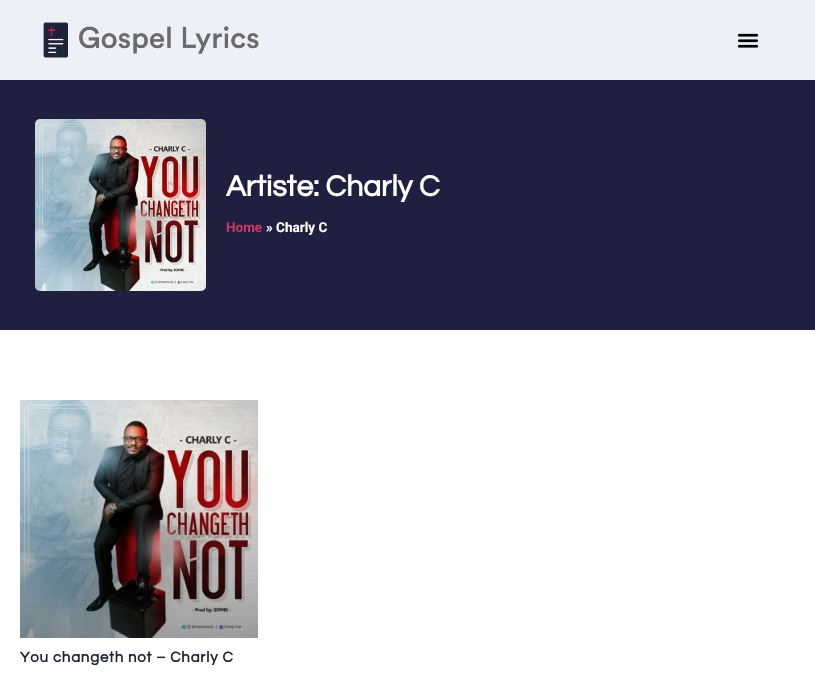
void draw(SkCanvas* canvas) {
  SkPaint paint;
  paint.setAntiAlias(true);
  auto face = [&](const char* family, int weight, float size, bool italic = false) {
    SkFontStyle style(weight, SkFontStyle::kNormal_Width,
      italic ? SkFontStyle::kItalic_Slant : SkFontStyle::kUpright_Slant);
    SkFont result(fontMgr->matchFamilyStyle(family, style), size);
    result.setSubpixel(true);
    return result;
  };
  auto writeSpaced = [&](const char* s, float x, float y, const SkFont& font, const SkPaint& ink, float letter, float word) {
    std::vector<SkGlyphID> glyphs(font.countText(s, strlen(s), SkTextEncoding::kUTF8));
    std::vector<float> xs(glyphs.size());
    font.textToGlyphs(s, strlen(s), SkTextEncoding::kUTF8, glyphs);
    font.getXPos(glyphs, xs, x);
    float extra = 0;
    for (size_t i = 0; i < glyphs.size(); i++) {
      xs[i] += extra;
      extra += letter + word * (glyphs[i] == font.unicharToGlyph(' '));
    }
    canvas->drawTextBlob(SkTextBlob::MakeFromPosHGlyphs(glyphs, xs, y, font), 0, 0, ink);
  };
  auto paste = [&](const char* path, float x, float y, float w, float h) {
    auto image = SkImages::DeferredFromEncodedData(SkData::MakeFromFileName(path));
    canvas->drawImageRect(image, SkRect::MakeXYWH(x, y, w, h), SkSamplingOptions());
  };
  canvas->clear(0xffffffff);
  paint.setColor(0xffedf0f7);
  canvas->drawRect(SkRect::MakeXYWH(0, 0, 815, 80), paint);
  paste("img/1.png", 43, 22, 216, 36);
  paste("img/2.png", 737, 33, 22, 15);
  paint.setColor(0xff211f40);
  canvas->drawRect(SkRect::MakeXYWH(0, 80, 815, 250), paint);
  paste("img/3.png", 35, 119, 171, 172);
  paste("img/4.png", 20, 400, 238, 238);
  auto f0 = face("Questrial", 700, 30);
  paint.setColor(0xffffffff);
  canvas->drawString("Artiste: Charly C", 226, 196, f0, paint);
  auto f1 = face("Roboto", 700, 13.5f);
  paint.setColor(0xffcc3366);
  canvas->drawString("Home", 226, 232, f1, paint);
  paint.setColor(0xffffffff);
  canvas->drawString("» Charly C", 266, 232, f1, paint);
  auto f2 = face("Questrial", 700, 15);
  paint.setColor(0xff21243b);
  writeSpaced("You changeth not – Charly C", 20, 662, f2, paint, 0.8f, 0);
}
